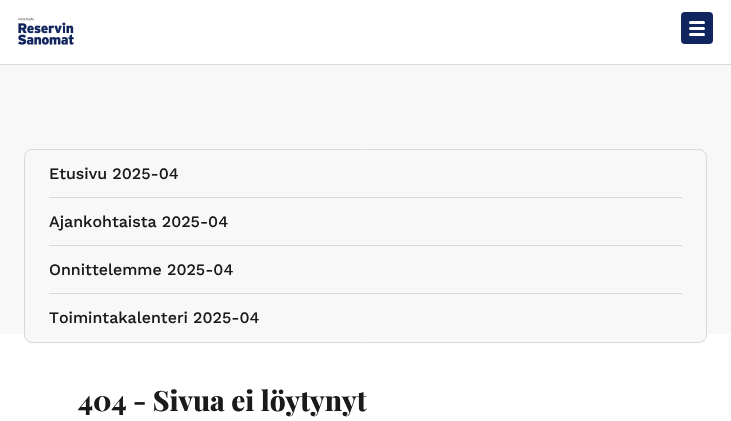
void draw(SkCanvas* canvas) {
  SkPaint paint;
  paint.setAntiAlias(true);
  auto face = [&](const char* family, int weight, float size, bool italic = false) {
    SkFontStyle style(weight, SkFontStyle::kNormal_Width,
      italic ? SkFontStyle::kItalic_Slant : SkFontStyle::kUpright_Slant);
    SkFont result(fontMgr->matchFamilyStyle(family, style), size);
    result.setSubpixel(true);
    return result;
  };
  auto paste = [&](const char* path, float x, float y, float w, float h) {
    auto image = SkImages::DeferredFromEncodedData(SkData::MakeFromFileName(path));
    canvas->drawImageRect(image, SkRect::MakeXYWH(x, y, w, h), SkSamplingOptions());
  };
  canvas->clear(0xfff8f8f8);
  paint.setColor(0xffffffff);
  canvas->drawRect(SkRect::MakeXYWH(0, 0, 731, 64), paint);
  paint.setColor(0xffd8d9de);
  canvas->drawRect(SkRect::MakeXYWH(0, 64, 731, 1), paint);
  paste("img/1.png", 18, 17, 56, 28);
  paint.setColor(0xff10255d);
  canvas->drawRoundRect(SkRect::MakeXYWH(681, 12, 32, 32), 4, 4, paint);
  paint.setColor(0xffffffff);
  canvas->drawRoundRect(SkRect::MakeXYWH(689, 33, 16, 3), 1.5f, 1.5f, paint);
  canvas->drawRoundRect(SkRect::MakeXYWH(689, 21, 16, 3), 1.5f, 1.5f, paint);
  canvas->drawRoundRect(SkRect::MakeXYWH(689, 27, 16, 3), 1.5f, 1.5f, paint);
  canvas->drawRect(SkRect::MakeXYWH(0, 334, 731, 87), paint);
  paint.setColor(0xfff8f8f8);
  canvas->drawRoundRect(SkRect::MakeXYWH(24.5f, 149.5f, 682, 193), 7.5f, 7.5f, paint);
  paint.setStroke(true);
  paint.setStrokeWidth(1);
  paint.setColor(0xffd9d9d9);
  canvas->drawRoundRect(SkRect::MakeXYWH(24.5f, 149.5f, 682, 193), 7.5f, 7.5f, paint);
  paint.setStroke(false);
  {
    const struct { float x, y, w, h; SkColor color; } items[] = {
      {49, 197, 633, 1, 0xffd9d9d9},
      {49, 245, 633, 1, 0xffd9d9d9},
      {49, 293, 633, 1, 0xffd9d9d9},
    };
    for (auto [x, y, w, h, color] : items) {
      paint.setColor(color);
      canvas->drawRect(SkRect::MakeXYWH(x, y, w, h), paint);
    }
  }
  auto f0 = face("Work Sans", 500, 16);
  paint.setColor(0xff1a1a1a);
  {
    const struct { const char* s; float x, y; } items[] = {
      {"Etusivu 2025-04", 49, 179},
      {"Ajankohtaista 2025-04", 49, 227},
      {"Onnittelemme 2025-04", 49, 275},
      {"Toimintakalenteri 2025-04", 49, 323},
    };
    for (auto [s, x, y] : items) {
      canvas->drawString(s, x, y, f0, paint);
    }
  }
  auto f1 = face("Playfair Display", 800, 28);
  canvas->drawString("404 - Sivua ei löytynyt", 78, 411, f1, paint);
}
